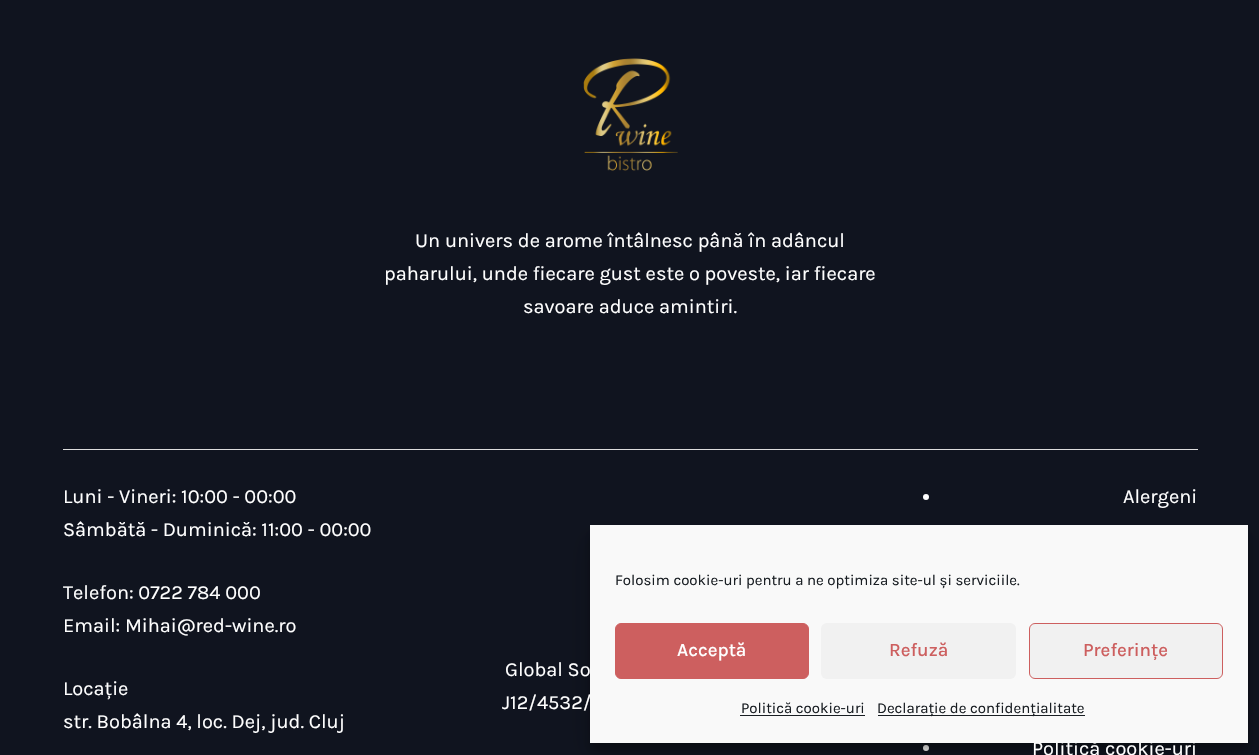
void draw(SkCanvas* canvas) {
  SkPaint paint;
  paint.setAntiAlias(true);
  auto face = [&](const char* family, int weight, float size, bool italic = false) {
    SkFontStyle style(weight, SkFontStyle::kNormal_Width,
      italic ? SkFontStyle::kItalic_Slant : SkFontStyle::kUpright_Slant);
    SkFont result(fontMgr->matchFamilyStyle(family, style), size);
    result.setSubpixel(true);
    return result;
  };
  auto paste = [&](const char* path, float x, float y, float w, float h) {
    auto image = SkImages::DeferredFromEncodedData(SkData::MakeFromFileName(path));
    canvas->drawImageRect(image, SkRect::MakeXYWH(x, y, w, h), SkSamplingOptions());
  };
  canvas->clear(0xff10141f);
  paste("img/1.png", 583, 58, 95, 113);
  paint.setColor(0xffdddddd);
  canvas->drawRect(SkRect::MakeXYWH(63, 449, 1135, 1), paint);
  paint.setColor(0xffffffff);
  canvas->drawCircle(926, 497, 3, paint);
  canvas->drawCircle(926, 748, 3, paint);
  paint.setColor(0x3b000000);
  paint.setMaskFilter(SkMaskFilter::MakeBlur(kNormal_SkBlurStyle, 4));
  canvas->drawRect(SkRect::MakeXYWH(590, 533, 658, 217), paint);
  paint.setMaskFilter(nullptr);
  paint.setColor(0x30000000);
  paint.setMaskFilter(SkMaskFilter::MakeBlur(kNormal_SkBlurStyle, 12.5f));
  canvas->drawRect(SkRect::MakeXYWH(590, 538, 658, 217), paint);
  paint.setMaskFilter(nullptr);
  auto f0 = face("Karla", 400, 20);
  paint.setColor(0xffffffff);
  {
    const struct { const char* s; float x, y; } items[] = {
      {"Un univers de arome întâlnesc până în adâncul", 415, 247},
      {"paharului, unde fiecare gust este o poveste, iar fiecare", 384, 280},
      {"savoare aduce amintiri.", 523, 313},
      {"Luni - Vineri: 10:00 - 00:00", 63, 503},
      {"Sâmbătă - Duminică: 11:00 - 00:00", 63, 536},
      {"Telefon: 0722 784 000", 63, 599},
      {"Email: Mihai@red-wine.ro", 63, 632},
      {"Locație", 63, 695},
      {"str. Bobâlna 4, loc. Dej, jud. Cluj", 63, 728},
      {"Global So", 505, 676},
      {"J12/4532/", 502, 709},
      {"Alergeni", 1123, 503},
      {"Politică cookie-uri", 1032, 755},
    };
    for (auto [s, x, y] : items) {
      canvas->drawString(s, x, y, f0, paint);
    }
  }
  paint.setColor(0xfff9f9f9);
  canvas->drawRect(SkRect::MakeXYWH(590, 525, 658, 218), paint);
  auto f1 = face("Karla", 400, 15);
  paint.setColor(0xff191e23);
  canvas->drawString("Folosim cookie-uri pentru a ne optimiza site-ul și serviciile.", 615, 585, f1, paint);
  paint.setColor(0xffcd5f5f);
  canvas->drawRoundRect(SkRect::MakeXYWH(615.5f, 623.5f, 193, 55), 5.5f, 5.5f, paint);
  paint.setStroke(true);
  paint.setStrokeWidth(1);
  canvas->drawRoundRect(SkRect::MakeXYWH(615.5f, 623.5f, 193, 55), 5.5f, 5.5f, paint);
  auto f2 = face("Karla", 500, 18.75f);
  paint.setStroke(false);
  paint.setColor(0xffffffff);
  canvas->drawString("Acceptă", 677, 656, f2, paint);
  paint.setColor(0xfff1f1f1);
  canvas->drawRoundRect(SkRect::MakeXYWH(821, 623, 195, 56), 6, 6, paint);
  paint.setColor(0xffcd5f5f);
  canvas->drawString("Refuză", 889, 656, f2, paint);
  paint.setColor(0xfff1f1f1);
  canvas->drawRoundRect(SkRect::MakeXYWH(1029.5f, 623.5f, 193, 55), 5.5f, 5.5f, paint);
  paint.setStroke(true);
  paint.setColor(0xffcd5f5f);
  canvas->drawRoundRect(SkRect::MakeXYWH(1029.5f, 623.5f, 193, 55), 5.5f, 5.5f, paint);
  paint.setStroke(false);
  canvas->drawString("Preferințe", 1083, 656, f2, paint);
  paint.setColor(0xff191e23);
  canvas->drawString("Politică cookie-uri", 741, 713, f1, paint);
  canvas->drawRect(SkRect::MakeXYWH(740, 715, 125, 1), paint);
  canvas->drawRect(SkRect::MakeXYWH(878, 715, 207, 1), paint);
  canvas->drawString("Declarație de confidențialitate", 877, 713, f1, paint);
}
